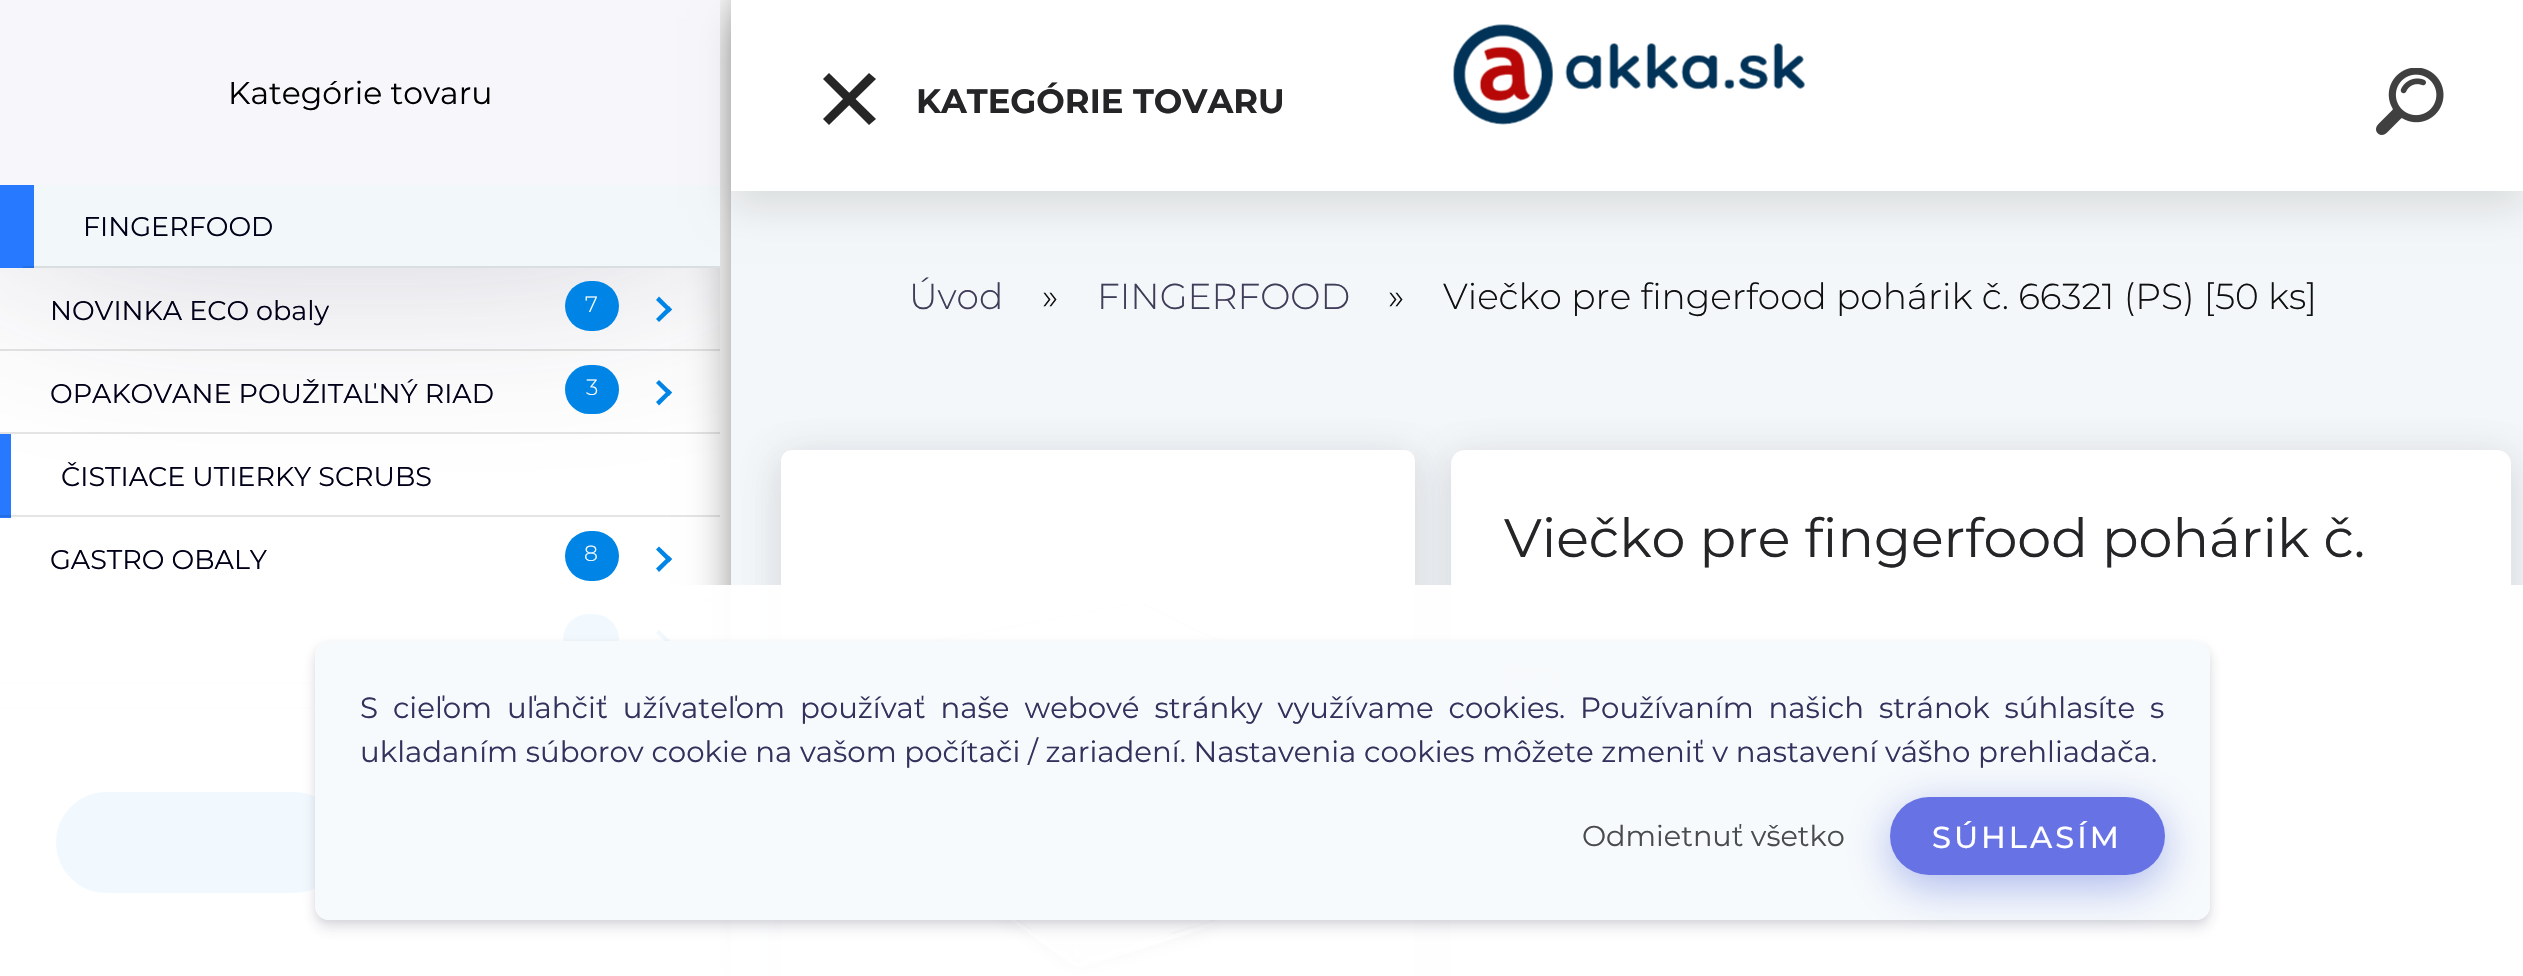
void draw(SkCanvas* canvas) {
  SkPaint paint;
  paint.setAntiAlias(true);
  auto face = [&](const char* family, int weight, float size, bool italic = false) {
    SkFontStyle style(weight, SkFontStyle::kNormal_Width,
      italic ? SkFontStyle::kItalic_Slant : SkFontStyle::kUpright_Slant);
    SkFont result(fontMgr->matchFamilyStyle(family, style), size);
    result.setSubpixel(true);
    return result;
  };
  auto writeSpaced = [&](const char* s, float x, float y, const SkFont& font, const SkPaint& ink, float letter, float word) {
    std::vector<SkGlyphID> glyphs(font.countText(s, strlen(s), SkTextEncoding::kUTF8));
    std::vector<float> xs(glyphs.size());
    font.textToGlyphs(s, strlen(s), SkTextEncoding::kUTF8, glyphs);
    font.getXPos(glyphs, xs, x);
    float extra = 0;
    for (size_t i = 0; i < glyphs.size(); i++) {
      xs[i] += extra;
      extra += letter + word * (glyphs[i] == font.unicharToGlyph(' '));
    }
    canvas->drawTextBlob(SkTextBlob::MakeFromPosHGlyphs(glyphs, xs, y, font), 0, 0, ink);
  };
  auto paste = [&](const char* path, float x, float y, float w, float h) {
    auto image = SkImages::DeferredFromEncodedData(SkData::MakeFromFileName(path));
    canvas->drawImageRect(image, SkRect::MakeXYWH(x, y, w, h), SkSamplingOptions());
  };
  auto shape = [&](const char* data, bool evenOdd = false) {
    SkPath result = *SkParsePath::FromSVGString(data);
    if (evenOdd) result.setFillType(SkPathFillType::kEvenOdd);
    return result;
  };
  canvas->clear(0xffffffff);
  canvas->save();
  canvas->clipRect(SkRect::MakeXYWH(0, 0, 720, 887));
  paint.setColor(0x663d355d);
  paint.setMaskFilter(SkMaskFilter::MakeBlur(kNormal_SkBlurStyle, 194.5f));
  canvas->drawRect(SkRect::MakeXYWH(0, 20, 720, 185), paint);
  paint.setMaskFilter(nullptr);
  canvas->restore();
  paint.setColor(0xff000000);
  paint.setMaskFilter(SkMaskFilter::MakeBlur(kNormal_SkBlurStyle, 28));
  canvas->drawRect(SkRect::MakeXYWH(754, -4, 720, 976), paint);
  paint.setMaskFilter(nullptr);
  {
    const struct { float x, y, w, h; SkColor color; } items[] = {
      {0, 0, 720, 185, 0xfff7f6fb},
      {34, 185, 686, 83, 0xfff2f8fa},
      {0, 185, 34, 83, 0xff2779ff},
      {23, 266, 697, 2, 0x1a000000},
    };
    for (auto [x, y, w, h, color] : items) {
      paint.setColor(color);
      canvas->drawRect(SkRect::MakeXYWH(x, y, w, h), paint);
    }
  }
  paint.setColor(0xff0084e6);
  canvas->drawRoundRect(SkRect::MakeXYWH(565, 281, 54, 50), 25, 25, paint);
  canvas->drawPath(shape("M672 309.5L659 322L656 319L669 306Z"), paint);
  canvas->drawPath(shape("M672 309.5L669 312.5L656 300L659 296.5Z"), paint);
  paint.setColor(0x1a000000);
  canvas->drawRect(SkRect::MakeXYWH(0, 349, 720, 2), paint);
  paint.setColor(0xff0084e6);
  canvas->drawRoundRect(SkRect::MakeXYWH(565, 365, 54, 49), 24.5f, 24.5f, paint);
  canvas->drawPath(shape("M672 392.5L659 405.5L656 402L669 389.5Z"), paint);
  canvas->drawPath(shape("M672 392.5L669 396L656 383L659 380Z"), paint);
  {
    const struct { float x, y, w, h; SkColor color; } items[] = {
      {0, 432, 720, 2, 0x1a000000},
      {0, 434, 11, 84, 0xff2779ff},
      {0, 515, 720, 2, 0x1a000000},
    };
    for (auto [x, y, w, h, color] : items) {
      paint.setColor(color);
      canvas->drawRect(SkRect::MakeXYWH(x, y, w, h), paint);
    }
  }
  paint.setColor(0xff0084e6);
  canvas->drawRoundRect(SkRect::MakeXYWH(565, 531, 54, 50), 25, 25, paint);
  canvas->drawPath(shape("M672 559L659 572L656 568.5L669 556Z"), paint);
  canvas->drawPath(shape("M672 559L669 562.5L656 549.5L659 546.5Z"), paint);
  paint.setColor(0x1a000000);
  canvas->drawRect(SkRect::MakeXYWH(0, 599, 720, 2), paint);
  paint.setColor(0xff0084e6);
  canvas->drawRoundRect(SkRect::MakeXYWH(563, 614, 56, 50), 25, 25, paint);
  canvas->drawPath(shape("M672 642.5L659 655L656 652L669 639Z"), paint);
  canvas->drawPath(shape("M672 642.5L669 645.5L656 633L659 629.5Z"), paint);
  paint.setColor(0x1a000000);
  canvas->drawRect(SkRect::MakeXYWH(0, 682, 720, 2), paint);
  paint.setColor(0xff0084e6);
  canvas->drawRoundRect(SkRect::MakeXYWH(558, 698, 61, 49), 24.5f, 24.5f, paint);
  paint.setColor(0xffffffff);
  canvas->drawRect(SkRect::MakeXYWH(558, 709, 162, 267), paint);
  paint.setColor(0xffd9d9d9);
  canvas->drawRect(SkRect::MakeXYWH(0, 707, 720, 2), paint);
  paint.setColor(0xff0084e6);
  canvas->drawRoundRect(SkRect::MakeXYWH(57, 793, 286, 99), 49.5f, 49.5f, paint);
  paint.setStroke(true);
  paint.setStrokeWidth(2);
  canvas->drawRoundRect(SkRect::MakeXYWH(57, 793, 286, 99), 49.5f, 49.5f, paint);
  paint.setStrokeWidth(5);
  canvas->drawRoundRect(SkRect::MakeXYWH(380.5f, 794.5f, 283, 96), 48, 48, paint);
  paint.setStroke(false);
  paint.setColor(0xfff4f7f9);
  canvas->drawRect(SkRect::MakeXYWH(731, 191, 1792, 785), paint);
  paint.setColor(0x1a000000);
  paint.setMaskFilter(SkMaskFilter::MakeBlur(kNormal_SkBlurStyle, 18));
  canvas->drawRect(SkRect::MakeXYWH(731, 18, 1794, 191), paint);
  paint.setMaskFilter(nullptr);
  paint.setColor(0xffffffff);
  canvas->drawRect(SkRect::MakeXYWH(731, 0, 1792, 191), paint);
  paint.setColor(0xff262626);
  canvas->drawPath(shape("M876 79L829 125L823 119L869 73Z"), paint);
  canvas->drawPath(shape("M869 125L823 79L829 73L876 119Z"), paint);
  paste("img/1.png", 1453, 24, 352, 101);
  paste("img/2.png", 2376, 68, 68, 67);
  paint.setColor(0x12000000);
  paint.setMaskFilter(SkMaskFilter::MakeBlur(kNormal_SkBlurStyle, 17));
  canvas->drawRoundRect(SkRect::MakeXYWH(1451, 461, 1060, 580), 14, 14, paint);
  paint.setMaskFilter(nullptr);
  paint.setColor(0x1a32325d);
  paint.setMaskFilter(SkMaskFilter::MakeBlur(kNormal_SkBlurStyle, 22.5f));
  canvas->drawRoundRect(SkRect::MakeXYWH(1451, 455, 1060, 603), 14, 14, paint);
  paint.setMaskFilter(nullptr);
  paint.setColor(0xffffffff);
  canvas->drawRoundRect(SkRect::MakeXYWH(1451, 450, 1060, 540), 14, 14, paint);
  paint.setColor(0x1a32325d);
  paint.setMaskFilter(SkMaskFilter::MakeBlur(kNormal_SkBlurStyle, 22.5f));
  canvas->drawRoundRect(SkRect::MakeXYWH(781, 455, 634, 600), 11, 11, paint);
  paint.setMaskFilter(nullptr);
  paint.setColor(0x12000000);
  paint.setMaskFilter(SkMaskFilter::MakeBlur(kNormal_SkBlurStyle, 17));
  canvas->drawRoundRect(SkRect::MakeXYWH(781, 461, 634, 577), 11, 11, paint);
  paint.setMaskFilter(nullptr);
  paint.setColor(0xffffffff);
  canvas->drawRoundRect(SkRect::MakeXYWH(781, 450, 634, 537), 11, 11, paint);
  paste("img/3.png", 918, 603, 379, 373);
  paste("img/4.png", 1505, 666, 54, 47);
  paint.setColor(0xf2ffffff);
  canvas->drawRect(SkRect::MakeXYWH(0, 585, 2523, 391), paint);
  canvas->save();
  canvas->clipPath(shape("M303 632H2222V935H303ZM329 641H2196C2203.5 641 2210 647.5 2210 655V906C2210 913.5 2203.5 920 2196 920H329C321.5 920 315 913.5 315 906V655C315 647.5 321.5 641 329 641Z", true), true);
  paint.setColor(0x14000000);
  paint.setMaskFilter(SkMaskFilter::MakeBlur(kNormal_SkBlurStyle, 3.5f));
  canvas->drawRoundRect(SkRect::MakeXYWH(315, 644, 1895, 279), 14, 14, paint);
  paint.setMaskFilter(nullptr);
  canvas->restore();
  canvas->save();
  canvas->clipPath(shape("M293 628H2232V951H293ZM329 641H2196C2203.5 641 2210 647.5 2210 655V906C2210 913.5 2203.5 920 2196 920H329C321.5 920 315 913.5 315 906V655C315 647.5 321.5 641 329 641Z", true), true);
  paint.setColor(0x1c32325d);
  paint.setMaskFilter(SkMaskFilter::MakeBlur(kNormal_SkBlurStyle, 7));
  canvas->drawRoundRect(SkRect::MakeXYWH(315, 650, 1895, 279), 14, 14, paint);
  paint.setMaskFilter(nullptr);
  canvas->restore();
  paint.setColor(0xe6f6f9fc);
  canvas->drawRoundRect(SkRect::MakeXYWH(315, 641, 1895, 279), 14, 14, paint);
  paint.setColor(0x663a54d6);
  paint.setMaskFilter(SkMaskFilter::MakeBlur(kNormal_SkBlurStyle, 22.5f));
  canvas->drawRoundRect(SkRect::MakeXYWH(1890, 808, 275, 79), 39.5f, 39.5f, paint);
  paint.setMaskFilter(nullptr);
  paint.setColor(0xff6772e5);
  canvas->drawRoundRect(SkRect::MakeXYWH(1890, 797, 275, 78), 39, 39, paint);
  auto f0 = face("Montserrat", 400, 31.5f);
  paint.setColor(0xff000000);
  canvas->drawString("Kategórie tovaru", 228, 104, f0, paint);
  auto f1 = face("Montserrat", 400, 27);
  paint.setColor(0xff000019);
  canvas->drawString("FINGERFOOD", 83, 236, f1, paint);
  canvas->drawString("NOVINKA ECO obaly", 50, 320, f1, paint);
  auto f2 = face("Montserrat", 300, 22);
  paint.setColor(0xffffffff);
  canvas->drawString("7", 585, 312, f2, paint);
  paint.setColor(0xff000019);
  canvas->drawString("OPAKOVANE POUŽITAĽNÝ RIAD", 50, 403, f1, paint);
  paint.setColor(0xffffffff);
  canvas->drawString("3", 586, 395, f2, paint);
  paint.setColor(0xff000019);
  canvas->drawString("ČISTIACE UTIERKY SCRUBS", 61, 486, f1, paint);
  canvas->drawString("GASTRO OBALY", 50, 569, f1, paint);
  paint.setColor(0xffffffff);
  canvas->drawString("8", 584, 561, f2, paint);
  auto f3 = face("Montserrat", 700, 33.75f);
  paint.setColor(0xff252527);
  canvas->drawString("KATEGÓRIE TOVARU", 916, 113, f3, paint);
  auto f4 = face("Montserrat", 300, 36);
  paint.setColor(0xff3f3d59);
  canvas->drawString("Úvod", 909, 309, f4, paint);
  paint.setColor(0xff101010);
  canvas->drawString("»", 1042, 309, f4, paint);
  paint.setColor(0xff3f3d59);
  canvas->drawString("FINGERFOOD", 1097, 309, f4, paint);
  paint.setColor(0xff101010);
  canvas->drawString("»", 1388, 309, f4, paint);
  canvas->drawString("Viečko pre fingerfood pohárik č. 66321 (PS) [50 ks]", 1443, 309, f4, paint);
  auto f5 = face("Montserrat", 400, 54);
  paint.setColor(0xff252527);
  canvas->drawString("Viečko pre fingerfood pohárik č.", 1504, 557, f5, paint);
  auto f6 = face("Montserrat", 400, 29.25f);
  paint.setColor(0xff32325d);
  writeSpaced("S cieľom uľahčiť užívateľom používať naše webové stránky využívame cookies. Používaním našich stránok súhlasíte s", 360, 718, f6, paint, 0, 7.25f);
  canvas->drawString("ukladaním súborov cookie na vašom počítači / zariadení. Nastavenia cookies môžete zmeniť v nastavení vášho prehliadača.", 360, 762, f6, paint);
  auto f7 = face("Montserrat", 400, 28.75f);
  paint.setColor(0xff4a4b4c);
  canvas->drawString("Odmietnuť všetko", 1582, 846, f7, paint);
  auto f8 = face("Montserrat", 500, 30.5f);
  paint.setColor(0xffffffff);
  writeSpaced("SÚHLASÍM", 1932, 848, f8, paint, 3, 0);
}
